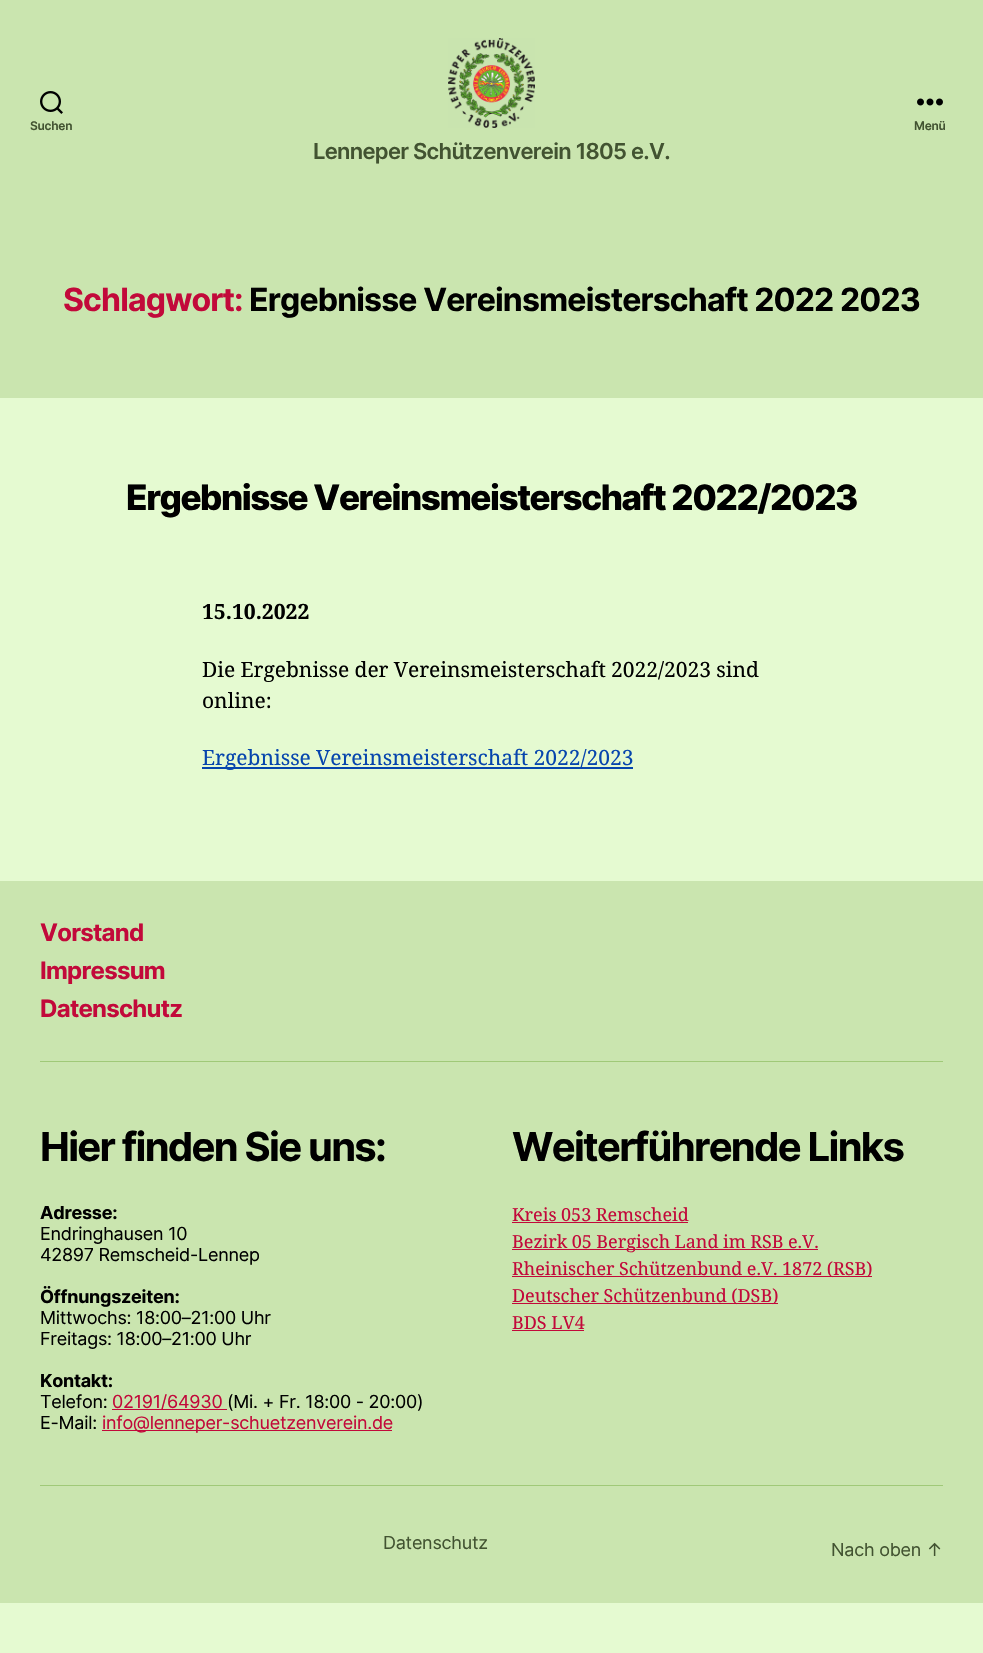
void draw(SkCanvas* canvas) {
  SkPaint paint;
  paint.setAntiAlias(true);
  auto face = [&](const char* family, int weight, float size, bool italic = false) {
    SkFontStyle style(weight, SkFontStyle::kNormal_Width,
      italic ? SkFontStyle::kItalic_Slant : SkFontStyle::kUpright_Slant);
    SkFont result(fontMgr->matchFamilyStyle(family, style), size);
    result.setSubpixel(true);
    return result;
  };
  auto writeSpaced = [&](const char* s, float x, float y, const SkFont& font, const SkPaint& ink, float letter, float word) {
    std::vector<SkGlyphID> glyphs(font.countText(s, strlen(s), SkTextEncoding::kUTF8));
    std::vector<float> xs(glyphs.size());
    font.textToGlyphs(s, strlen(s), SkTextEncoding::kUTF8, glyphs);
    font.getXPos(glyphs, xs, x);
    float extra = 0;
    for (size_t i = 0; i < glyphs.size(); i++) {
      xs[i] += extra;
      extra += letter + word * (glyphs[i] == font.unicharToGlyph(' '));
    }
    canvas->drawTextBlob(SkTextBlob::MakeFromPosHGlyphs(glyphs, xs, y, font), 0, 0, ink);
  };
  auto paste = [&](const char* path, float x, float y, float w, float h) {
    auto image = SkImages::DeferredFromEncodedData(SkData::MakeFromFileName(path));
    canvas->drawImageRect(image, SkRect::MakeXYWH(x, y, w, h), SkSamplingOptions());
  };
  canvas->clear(0xffe5fad1);
  paint.setColor(0xffcae5af);
  canvas->drawRect(SkRect::MakeXYWH(0, 0, 983, 398), paint);
  paste("img/1.png", 40, 91, 23, 23);
  paste("img/2.png", 917, 98, 26, 8);
  paste("img/3.png", 448, 38, 87, 90);
  {
    const struct { float x, y, w, h; SkColor color; } items[] = {
      {202, 767, 431, 2, 0xff0645ad},
      {0, 881, 983, 722, 0xffcae5af},
      {40, 1061, 903, 1, 0xffa0c978},
      {40, 1485, 903, 1, 0xffa0c978},
      {112, 1409, 115, 1, 0xffc2093a},
      {102, 1430, 290, 1, 0xffc2093a},
      {512, 1222, 176, 1, 0xffc2093a},
      {512, 1249, 306, 1, 0xffc2093a},
      {512, 1276, 360, 1, 0xffc2093a},
      {512, 1303, 266, 1, 0xffc2093a},
      {512, 1330, 72, 1, 0xffc2093a},
    };
    for (auto [x, y, w, h, color] : items) {
      paint.setColor(color);
      canvas->drawRect(SkRect::MakeXYWH(x, y, w, h), paint);
    }
  }
  auto f0 = face("Inter", 600, 12);
  paint.setColor(0xff425331);
  writeSpaced("Suchen", 30, 130, f0, paint, -0.25f, 0);
  writeSpaced("Menü", 914, 130, f0, paint, -0.25f, 0);
  auto f1 = face("Inter", 600, 22);
  writeSpaced("Lenneper Schützenverein 1805 e.V.", 313, 159, f1, paint, -0.7f, 0);
  auto f2 = face("Inter", 700, 32);
  paint.setColor(0xffc2093a);
  writeSpaced("Schlagwort:", 63, 311, f2, paint, -0.85f, 0);
  paint.setColor(0xff000000);
  writeSpaced("Ergebnisse Vereinsmeisterschaft 2022 2023", 249, 311, f2, paint, -0.85f, 0);
  auto f3 = face("Inter", 800, 35);
  writeSpaced("Ergebnisse Vereinsmeisterschaft 2022/2023", 126, 510, f3, paint, -1.45f, 0);
  auto f4 = face("Noto Serif", 700, 21);
  canvas->drawString("15.10.2022", 202, 619, f4, paint);
  auto f5 = face("Noto Serif", 400, 21);
  writeSpaced("Die Ergebnisse der Vereinsmeisterschaft 2022/2023 sind", 202, 677, f5, paint, 0, -0.25f);
  canvas->drawString("online:", 202, 708, f5, paint);
  paint.setColor(0xff0645ad);
  writeSpaced("Ergebnisse Vereinsmeisterschaft 2022/2023", 202, 765, f5, paint, 0, -0.25f);
  auto f6 = face("Inter", 700, 24);
  paint.setColor(0xffc2093a);
  {
    const struct { const char* s; float x, y; } items[] = {
      {"Vorstand", 40, 941},
      {"Impressum", 40, 979},
      {"Datenschutz", 40, 1017},
    };
    for (auto [s, x, y] : items) {
      writeSpaced(s, x, y, f6, paint, -0.75f, 0);
    }
  }
  auto f7 = face("Inter", 700, 40);
  paint.setColor(0xff000000);
  writeSpaced("Hier finden Sie uns:", 40, 1161, f7, paint, -1.7f, 0);
  auto f8 = face("Inter", 700, 18);
  writeSpaced("Adresse:", 40, 1219, f8, paint, -0.25f, 0);
  auto f9 = face("Inter", 400, 18);
  writeSpaced("Endringhausen 10", 40, 1240, f9, paint, -0.25f, 0);
  writeSpaced("42897 Remscheid-Lennep", 40, 1261, f9, paint, -0.25f, 0);
  writeSpaced("Öffnungszeiten:", 40, 1303, f8, paint, -0.25f, 0);
  writeSpaced("Mittwochs: 18:00–21:00 Uhr", 40, 1324, f9, paint, -0.25f, 0);
  writeSpaced("Freitags: 18:00–21:00 Uhr", 40, 1345, f9, paint, -0.25f, 0);
  writeSpaced("Kontakt:", 40, 1387, f8, paint, -0.25f, 0);
  writeSpaced("Telefon:", 40, 1408, f9, paint, -0.25f, 0);
  paint.setColor(0xffc2093a);
  writeSpaced("02191/64930", 112, 1408, f9, paint, -0.25f, 0);
  paint.setColor(0xff000000);
  writeSpaced("(Mi. + Fr. 18:00 - 20:00)", 227, 1408, f9, paint, -0.25f, 0);
  writeSpaced("E-Mail:", 40, 1429, f9, paint, -0.25f, 0);
  paint.setColor(0xffc2093a);
  writeSpaced("info@lenneper-schuetzenverein.de", 102, 1429, f9, paint, -0.25f, 0);
  paint.setColor(0xff000000);
  writeSpaced("Weiterführende Links", 512, 1161, f7, paint, -1.7f, 0);
  auto f10 = face("Noto Serif", 400, 18);
  paint.setColor(0xffc2093a);
  {
    const struct { const char* s; float x, y; } items[] = {
      {"Kreis 053 Remscheid", 512, 1221},
      {"Bezirk 05 Bergisch Land im RSB e.V.", 512, 1248},
      {"Rheinischer Schützenbund e.V. 1872 (RSB)", 512, 1275},
      {"Deutscher Schützenbund (DSB)", 512, 1302},
    };
    for (auto [s, x, y] : items) {
      writeSpaced(s, x, y, f10, paint, 0, -0.25f);
    }
  }
  canvas->drawString("BDS LV4", 512, 1329, f10, paint);
  paint.setColor(0xff425331);
  writeSpaced("Datenschutz", 383, 1549, f9, paint, -0.25f, 0);
  writeSpaced("Nach oben ↑", 831, 1556, f9, paint, -0.25f, 0);
}
